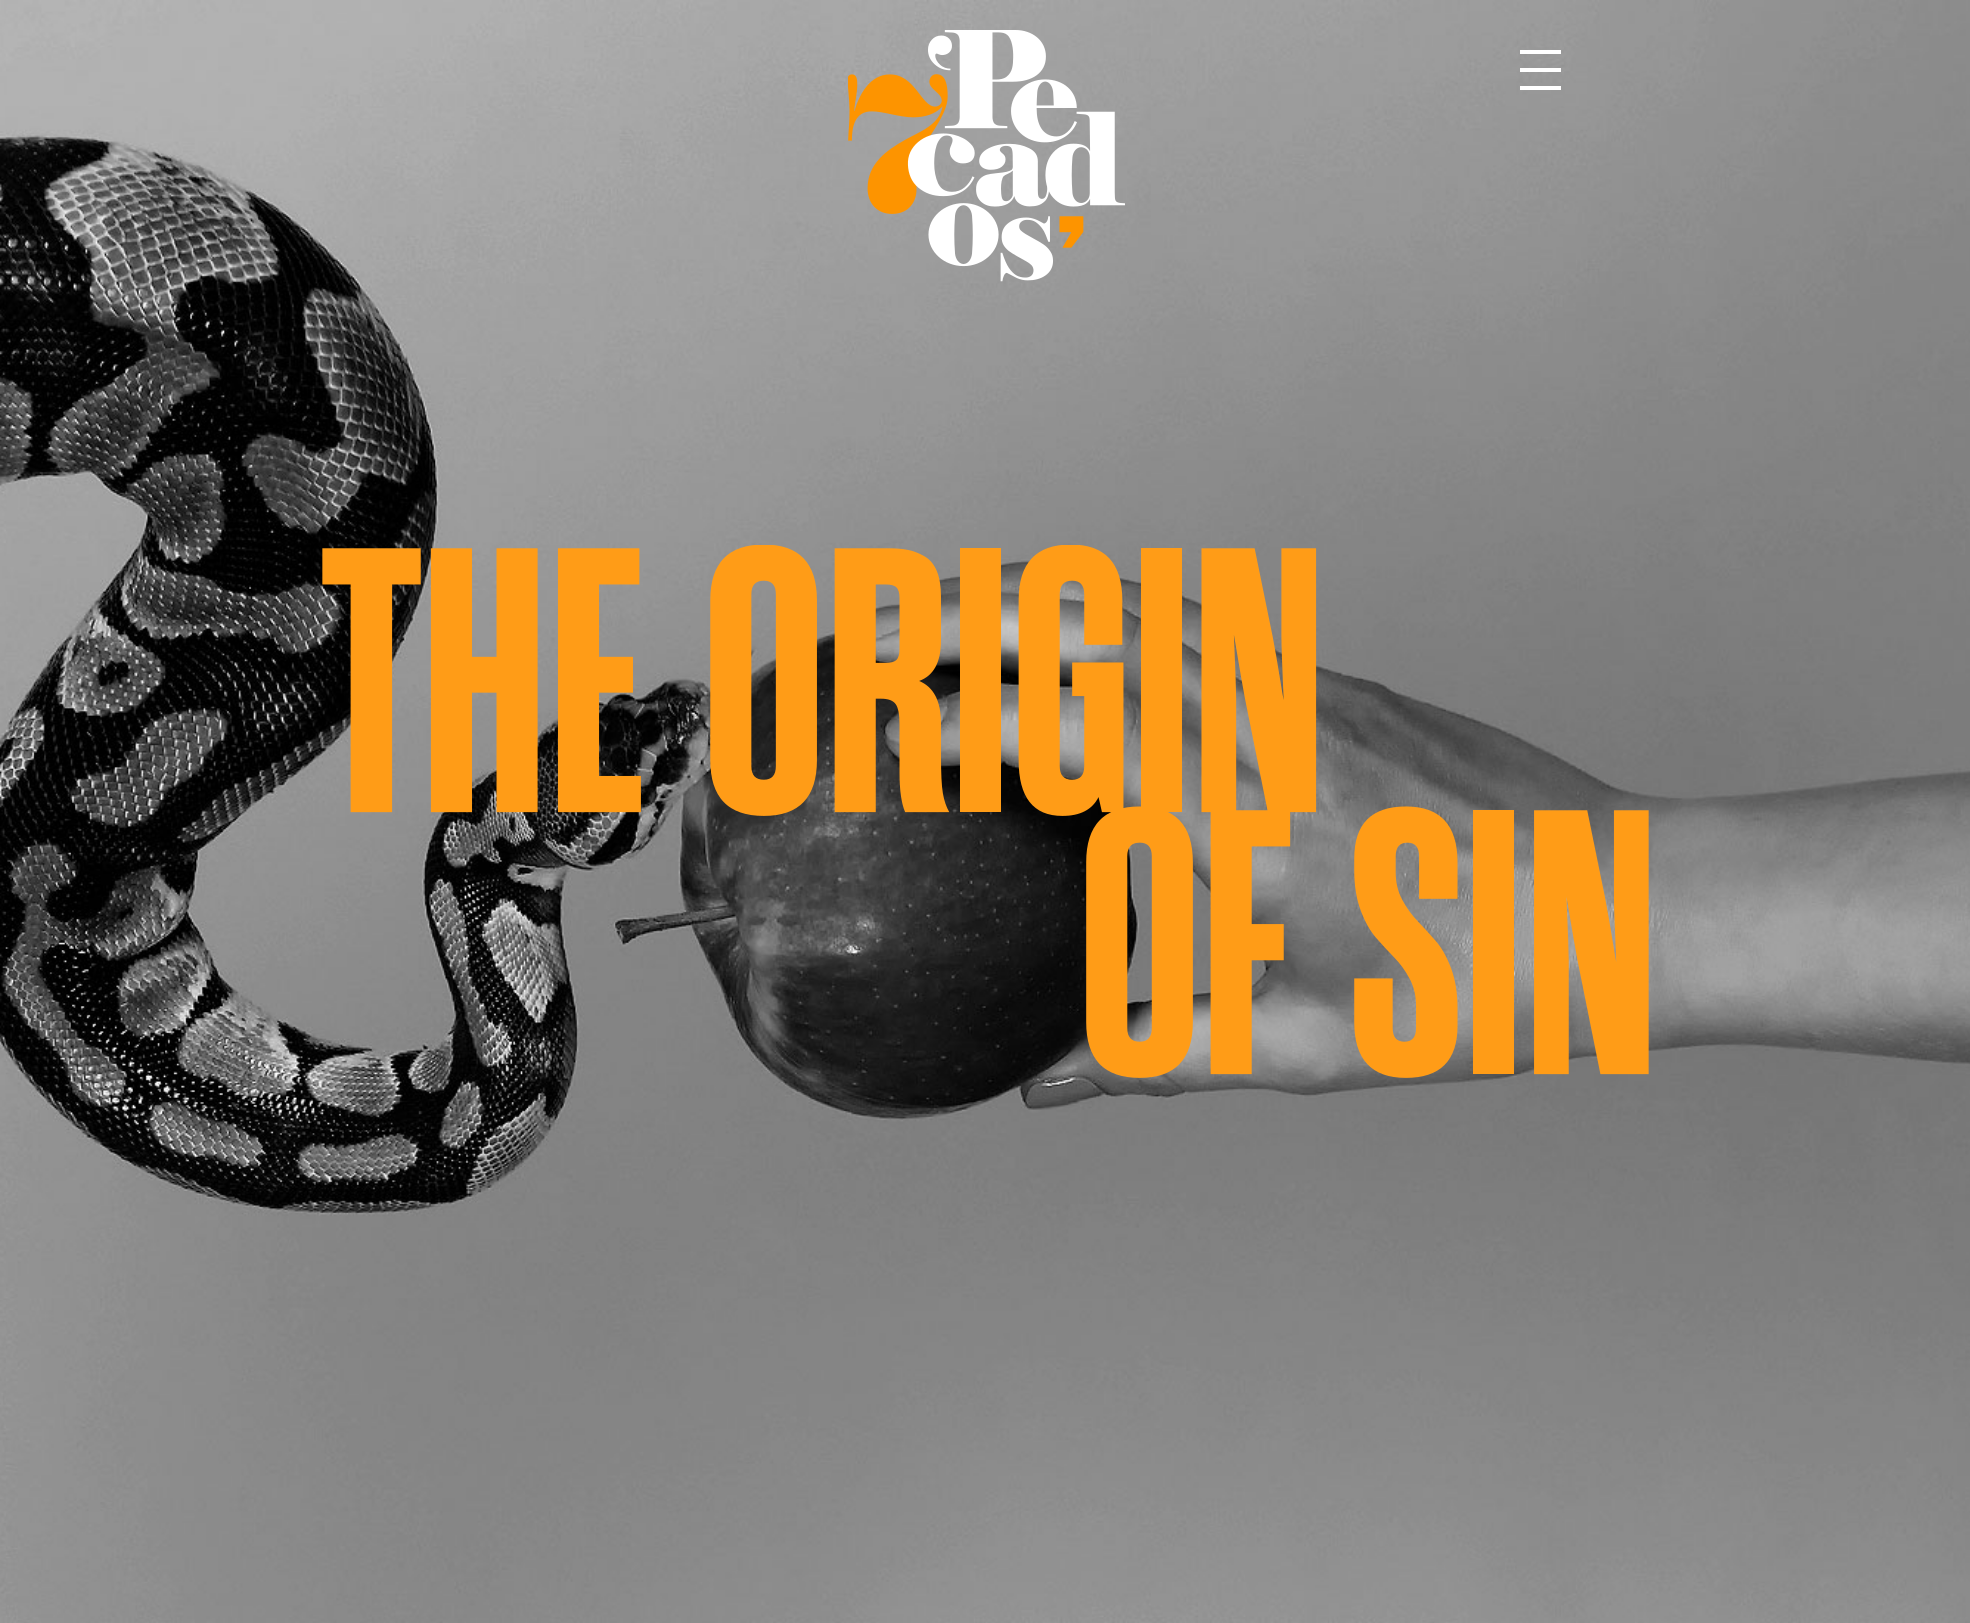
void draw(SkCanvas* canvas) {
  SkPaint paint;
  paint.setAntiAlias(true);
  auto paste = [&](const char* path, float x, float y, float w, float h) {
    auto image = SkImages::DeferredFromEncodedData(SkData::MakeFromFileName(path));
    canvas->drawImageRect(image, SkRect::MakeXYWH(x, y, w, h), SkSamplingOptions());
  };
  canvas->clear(0xffffffff);
  paste("img/1.png", 0, 0, 1970, 1623);
  paste("img/2.png", 322, 545, 1327, 533);
  paste("img/3.png", 848, 30, 277, 252);
  {
    const struct { float x, y, w, h; SkColor color; } items[] = {
      {1520, 50, 41, 4, 0xffffffff},
      {1520, 68, 41, 4, 0xffffffff},
      {1520, 86, 41, 4, 0xffffffff},
    };
    for (auto [x, y, w, h, color] : items) {
      paint.setColor(color);
      canvas->drawRect(SkRect::MakeXYWH(x, y, w, h), paint);
    }
  }
}
